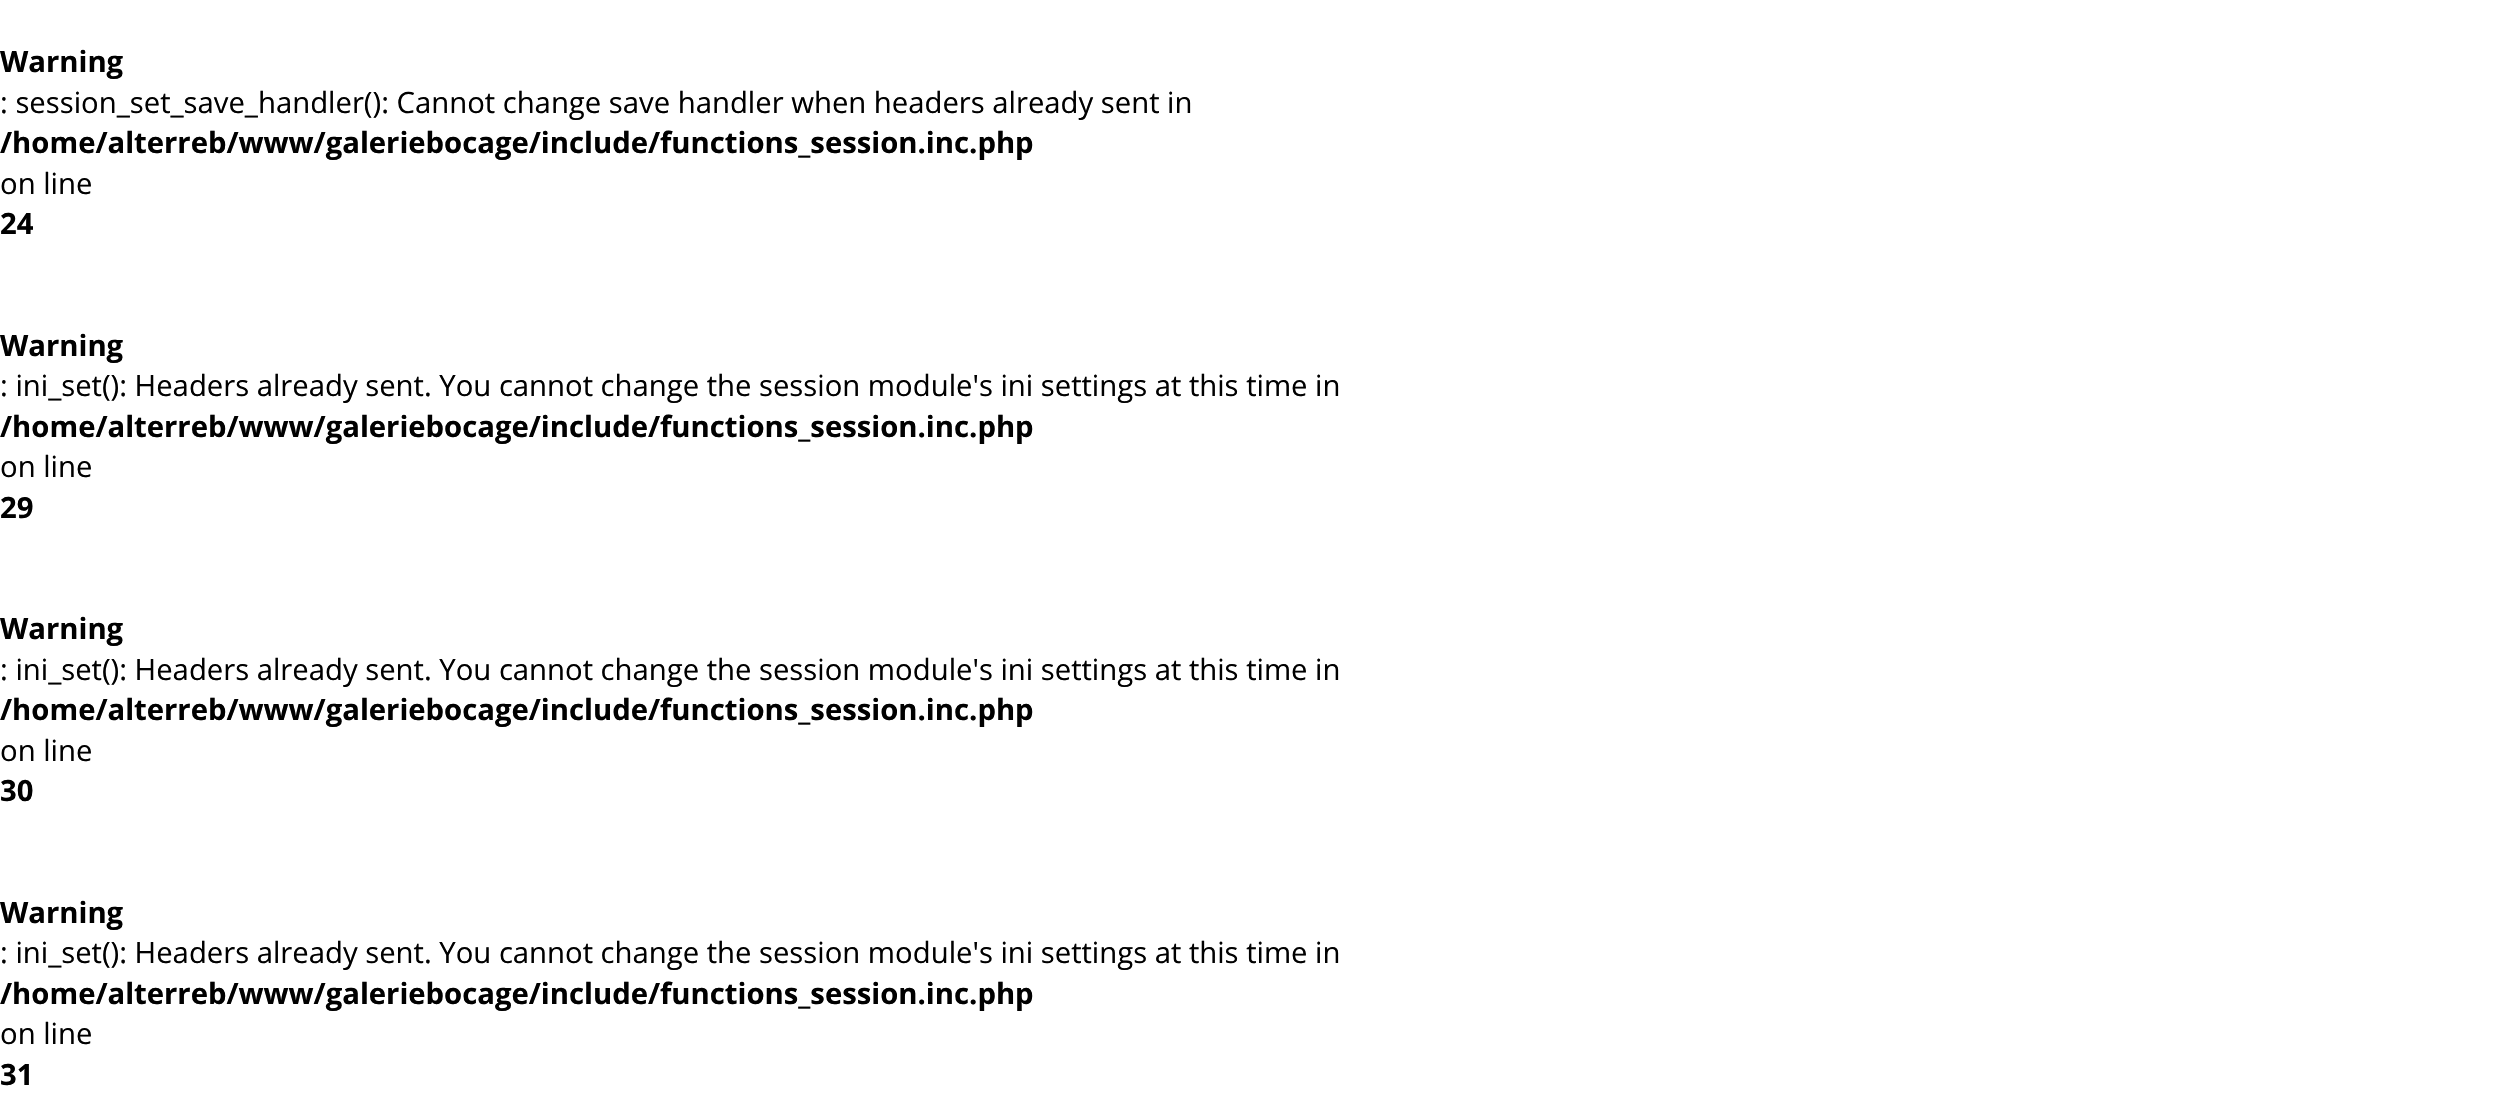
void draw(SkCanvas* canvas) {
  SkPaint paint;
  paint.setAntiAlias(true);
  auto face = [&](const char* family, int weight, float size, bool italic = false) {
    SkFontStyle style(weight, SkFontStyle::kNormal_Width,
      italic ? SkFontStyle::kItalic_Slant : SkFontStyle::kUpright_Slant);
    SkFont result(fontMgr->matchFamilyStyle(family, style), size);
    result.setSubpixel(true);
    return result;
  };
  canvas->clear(0xffffffff);
  auto f0 = face("Open Sans", 700, 29.25f);
  paint.setColor(0xff000000);
  canvas->drawString("Warning", 0, 72, f0, paint);
  auto f1 = face("Open Sans", 400, 29.25f);
  canvas->drawString(": session_set_save_handler(): Cannot change save handler when headers already sent in", 0, 113, f1, paint);
  canvas->drawString("/home/alterreb/www/galeriebocage/include/functions_session.inc.php", 0, 153, f0, paint);
  canvas->drawString("on line", 0, 194, f1, paint);
  canvas->drawString("24", 0, 234, f0, paint);
  canvas->drawString("Warning", 0, 356, f0, paint);
  canvas->drawString(": ini_set(): Headers already sent. You cannot change the session module's ini settings at this time in", 0, 396, f1, paint);
  canvas->drawString("/home/alterreb/www/galeriebocage/include/functions_session.inc.php", 0, 437, f0, paint);
  canvas->drawString("on line", 0, 477, f1, paint);
  canvas->drawString("29", 0, 518, f0, paint);
  canvas->drawString("Warning", 0, 639, f0, paint);
  canvas->drawString(": ini_set(): Headers already sent. You cannot change the session module's ini settings at this time in", 0, 680, f1, paint);
  canvas->drawString("/home/alterreb/www/galeriebocage/include/functions_session.inc.php", 0, 720, f0, paint);
  canvas->drawString("on line", 0, 761, f1, paint);
  canvas->drawString("30", 0, 801, f0, paint);
  canvas->drawString("Warning", 0, 923, f0, paint);
  canvas->drawString(": ini_set(): Headers already sent. You cannot change the session module's ini settings at this time in", 0, 963, f1, paint);
  canvas->drawString("/home/alterreb/www/galeriebocage/include/functions_session.inc.php", 0, 1004, f0, paint);
  canvas->drawString("on line", 0, 1044, f1, paint);
  canvas->drawString("31", 0, 1085, f0, paint);
}
